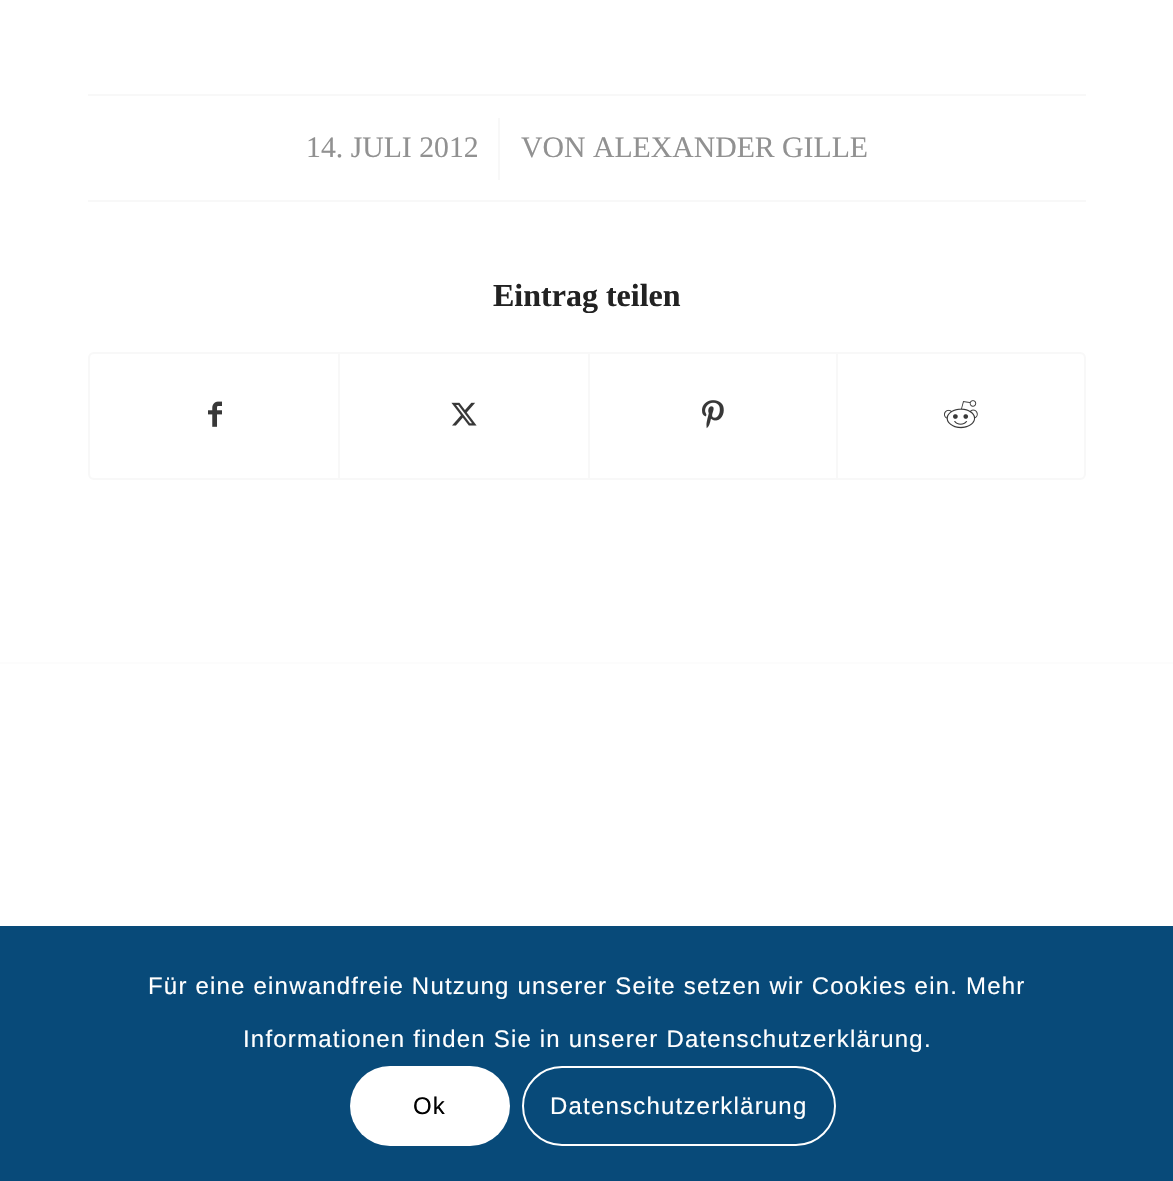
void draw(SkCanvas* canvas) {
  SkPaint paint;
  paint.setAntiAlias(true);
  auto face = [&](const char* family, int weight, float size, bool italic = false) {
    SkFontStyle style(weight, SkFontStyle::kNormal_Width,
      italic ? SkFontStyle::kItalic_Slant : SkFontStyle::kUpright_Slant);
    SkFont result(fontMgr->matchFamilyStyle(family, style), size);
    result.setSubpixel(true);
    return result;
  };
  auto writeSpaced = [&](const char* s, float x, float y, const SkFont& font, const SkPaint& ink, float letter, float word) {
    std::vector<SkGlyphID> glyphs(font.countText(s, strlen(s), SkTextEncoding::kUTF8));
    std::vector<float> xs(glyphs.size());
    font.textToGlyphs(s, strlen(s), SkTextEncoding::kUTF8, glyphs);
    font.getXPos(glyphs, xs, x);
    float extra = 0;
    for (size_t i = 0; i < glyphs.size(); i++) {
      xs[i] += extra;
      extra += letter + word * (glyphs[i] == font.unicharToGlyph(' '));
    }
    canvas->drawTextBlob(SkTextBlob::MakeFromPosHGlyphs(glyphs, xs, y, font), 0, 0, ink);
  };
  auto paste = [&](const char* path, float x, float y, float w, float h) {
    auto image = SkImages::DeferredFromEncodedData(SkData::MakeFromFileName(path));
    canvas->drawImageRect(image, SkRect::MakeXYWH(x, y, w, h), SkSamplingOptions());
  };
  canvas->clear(0xffffffff);
  {
    const struct { float x, y, w, h; SkColor color; } items[] = {
      {88, 94, 998, 2, 0xfff8f8f8},
      {88, 200, 998, 2, 0xfff8f8f8},
      {498, 118, 2, 62, 0xfff8f8f8},
    };
    for (auto [x, y, w, h, color] : items) {
      paint.setColor(color);
      canvas->drawRect(SkRect::MakeXYWH(x, y, w, h), paint);
    }
  }
  paint.setStroke(true);
  paint.setStrokeWidth(2);
  canvas->drawRoundRect(SkRect::MakeXYWH(89, 353, 996, 126), 5, 5, paint);
  paste("img/1.png", 208, 401, 14, 26);
  paint.setStroke(false);
  canvas->drawRect(SkRect::MakeXYWH(338, 354, 2, 124), paint);
  paste("img/2.png", 451, 402, 26, 24);
  canvas->drawRect(SkRect::MakeXYWH(588, 354, 2, 124), paint);
  paste("img/3.png", 702, 400, 22, 29);
  canvas->drawRect(SkRect::MakeXYWH(836, 354, 2, 124), paint);
  paste("img/4.png", 944, 400, 34, 29);
  paint.setColor(0xfffcfcfc);
  canvas->drawRect(SkRect::MakeXYWH(0, 662, 1173, 2), paint);
  paint.setColor(0xff084a79);
  canvas->drawRect(SkRect::MakeXYWH(0, 926, 1173, 255), paint);
  paint.setColor(0xffffffff);
  canvas->drawRoundRect(SkRect::MakeXYWH(350, 1066, 160, 80), 40, 40, paint);
  paint.setStroke(true);
  canvas->drawRoundRect(SkRect::MakeXYWH(523, 1067, 312, 78), 39, 39, paint);
  auto f0 = face("Liberation Serif", 400, 29.75f);
  paint.setStroke(false);
  paint.setColor(0xff919191);
  canvas->drawString("14. JULI 2012", 306, 157, f0, paint);
  canvas->drawString("VON ALEXANDER GILLE", 521, 157, f0, paint);
  auto f1 = face("Liberation Serif", 700, 32);
  paint.setColor(0xff222222);
  canvas->drawString("Eintrag teilen", 493, 306, f1, paint);
  auto f2 = face("Liberation Sans", 400, 24);
  paint.setColor(0xffffffff);
  writeSpaced("Für eine einwandfreie Nutzung unserer Seite setzen wir Cookies ein. Mehr", 148, 994, f2, paint, 1.2f, 0);
  writeSpaced("Informationen finden Sie in unserer Datenschutzerklärung.", 243, 1047, f2, paint, 1.2f, 0);
  paint.setColor(0xff000000);
  writeSpaced("Ok", 413, 1114, f2, paint, 1.2f, 0);
  paint.setColor(0xffffffff);
  writeSpaced("Datenschutzerklärung", 550, 1114, f2, paint, 1.2f, 0);
}
